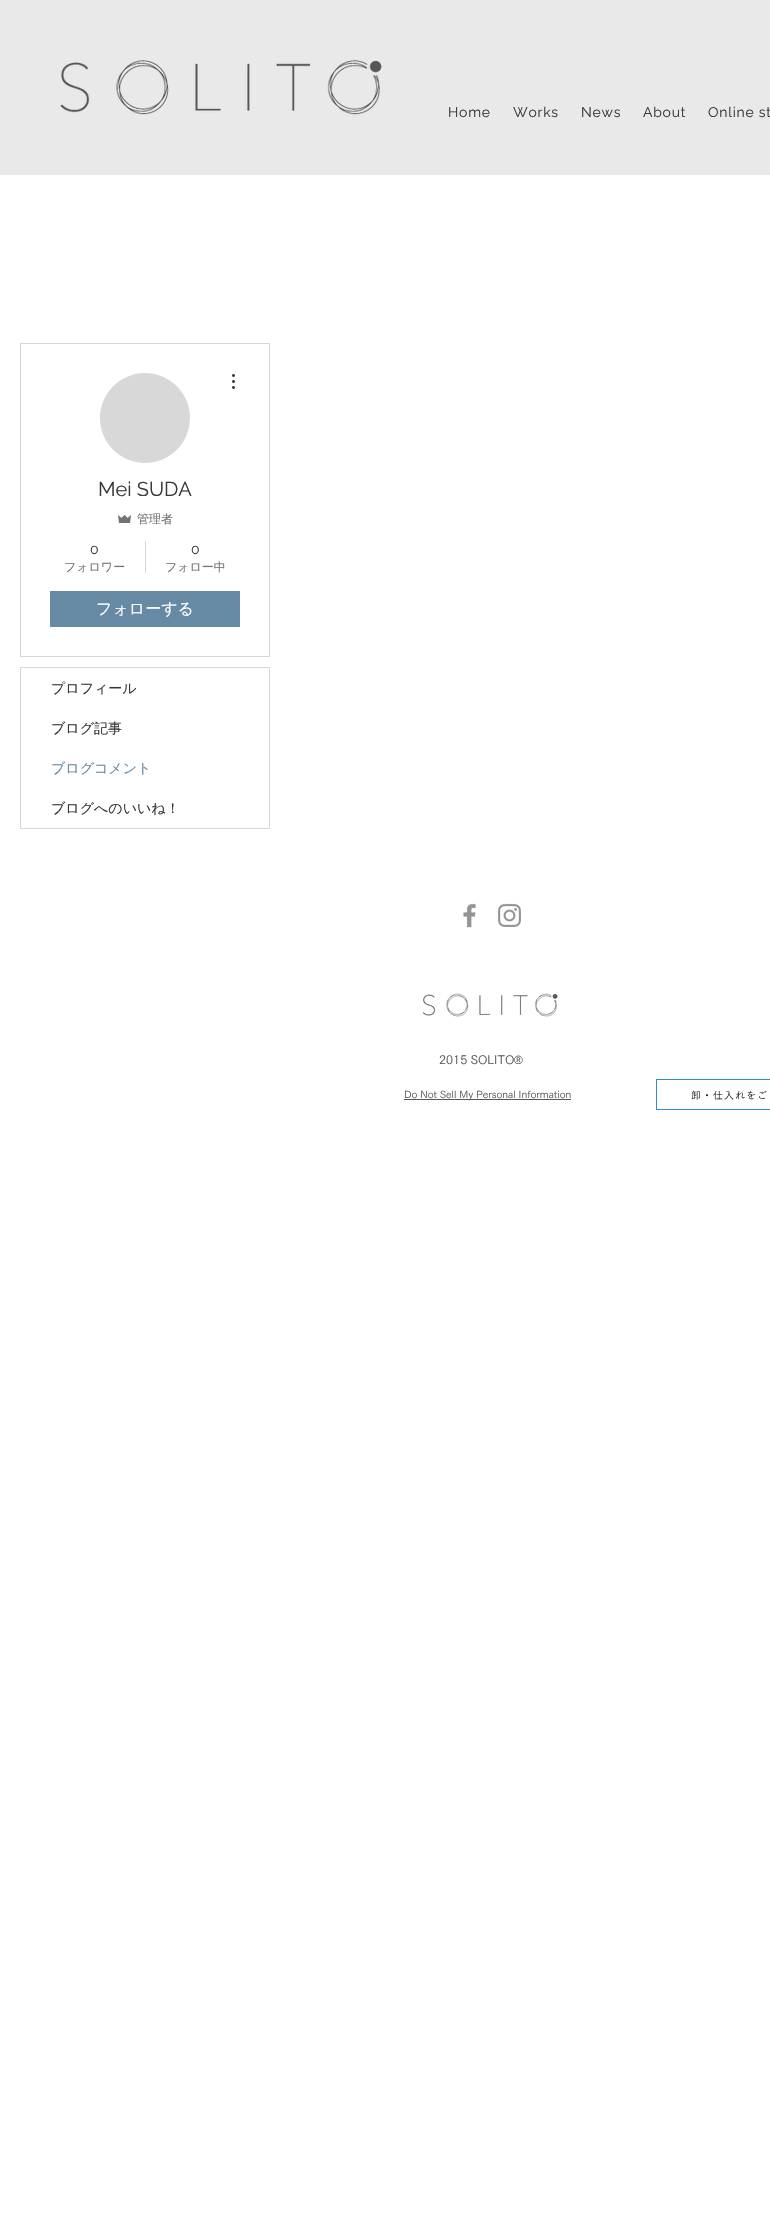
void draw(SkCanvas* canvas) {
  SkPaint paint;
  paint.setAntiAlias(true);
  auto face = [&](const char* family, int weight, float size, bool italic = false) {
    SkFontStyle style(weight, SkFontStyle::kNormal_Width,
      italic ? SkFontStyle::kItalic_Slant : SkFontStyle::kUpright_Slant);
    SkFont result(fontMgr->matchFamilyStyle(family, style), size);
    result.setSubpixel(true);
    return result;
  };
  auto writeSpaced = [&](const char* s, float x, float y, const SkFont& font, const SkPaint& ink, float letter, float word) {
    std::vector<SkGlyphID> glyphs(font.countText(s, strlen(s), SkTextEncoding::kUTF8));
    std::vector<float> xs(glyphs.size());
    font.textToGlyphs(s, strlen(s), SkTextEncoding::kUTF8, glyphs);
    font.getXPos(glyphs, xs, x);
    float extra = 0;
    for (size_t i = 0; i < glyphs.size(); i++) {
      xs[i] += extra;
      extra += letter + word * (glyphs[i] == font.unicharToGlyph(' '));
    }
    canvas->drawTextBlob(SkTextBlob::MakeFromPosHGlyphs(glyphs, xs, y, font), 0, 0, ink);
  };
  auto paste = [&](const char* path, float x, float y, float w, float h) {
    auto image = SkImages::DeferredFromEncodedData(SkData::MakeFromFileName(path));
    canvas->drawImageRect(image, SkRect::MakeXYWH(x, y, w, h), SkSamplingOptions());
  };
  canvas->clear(0xffffffff);
  paint.setColor(0xffe9e9e9);
  canvas->drawRect(SkRect::MakeXYWH(0, 0, 770, 175), paint);
  paste("img/1.png", 60, 60, 322, 55);
  paint.setStroke(true);
  paint.setStrokeWidth(1);
  paint.setColor(0xffd7d7d7);
  canvas->drawRect(SkRect::MakeXYWH(20.5f, 343.5f, 249, 313), paint);
  paint.setStroke(false);
  paint.setColor(0xffd8d8d8);
  canvas->drawCircle(145, 418, 45, paint);
  paste("img/2.png", 232, 374, 3, 15);
  paste("img/3.png", 118, 515, 13, 8);
  paint.setColor(0xffd7d7d7);
  canvas->drawRect(SkRect::MakeXYWH(145, 541, 1, 32), paint);
  paint.setColor(0xff668aa4);
  canvas->drawRect(SkRect::MakeXYWH(50, 591, 190, 36), paint);
  paint.setStroke(true);
  paint.setColor(0xffd7d7d7);
  canvas->drawRect(SkRect::MakeXYWH(20.5f, 667.5f, 249, 161), paint);
  paste("img/4.png", 463, 903, 13, 25);
  paste("img/5.png", 497, 903, 24, 24);
  paste("img/6.png", 423, 993, 135, 24);
  paint.setStroke(false);
  paint.setColor(0xff595959);
  canvas->drawRect(SkRect::MakeXYWH(404, 1099, 167, 1), paint);
  paint.setStroke(true);
  paint.setColor(0xff308cd5);
  canvas->drawRect(SkRect::MakeXYWH(656.5f, 1079.5f, 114, 30), paint);
  auto f0 = face("Raleway", 400, 14);
  paint.setStroke(false);
  paint.setColor(0xff383838);
  {
    const struct { const char* s; float x, y; } items[] = {
      {"Home", 448, 117},
      {"Works", 513, 117},
      {"News", 581, 117},
      {"About", 643, 117},
      {"Online st", 708, 117},
    };
    for (auto [s, x, y] : items) {
      writeSpaced(s, x, y, f0, paint, 0.75f, 0);
    }
  }
  auto f1 = face("Raleway", 400, 20);
  canvas->drawString("Mei SUDA", 98, 496, f1, paint);
  auto f2 = face("WenQuanYi Zen Hei", 500, 12);
  paint.setColor(0xff747474);
  canvas->drawString("管理者", 137, 523, f2, paint);
  paint.setColor(0xff383838);
  canvas->drawString("0", 90, 554, f0, paint);
  paint.setColor(0xff747474);
  canvas->drawString("フォロワー", 64, 571, f2, paint);
  paint.setColor(0xff383838);
  canvas->drawString("0", 191, 554, f0, paint);
  paint.setColor(0xff747474);
  canvas->drawString("フォロー中", 165, 571, f2, paint);
  auto f3 = face("WenQuanYi Zen Hei", 500, 16);
  paint.setColor(0xffffffff);
  canvas->drawString("フォローする", 96, 614, f3, paint);
  auto f4 = face("WenQuanYi Zen Hei", 500, 14);
  paint.setColor(0xff383838);
  canvas->drawString("プロフィール", 51, 693, f4, paint);
  canvas->drawString("ブログ記事", 51, 733, f4, paint);
  paint.setColor(0xff668aa4);
  canvas->drawString("ブログコメント", 51, 773, f4, paint);
  paint.setColor(0xff383838);
  canvas->drawString("ブログへのいいね！", 51, 813, f4, paint);
  auto f5 = face("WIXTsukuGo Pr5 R", 400, 12);
  paint.setColor(0xff595959);
  canvas->drawString("2015 SOLITO", 439, 1064, f5, paint);
  auto f6 = face("Liberation Sans", 400, 12);
  canvas->drawString("®", 514, 1064, f6, paint);
  auto f7 = face("WIXTsukuGo Pr5 R", 400, 10);
  canvas->drawString("Do Not Sell My Personal Information", 404, 1098, f7, paint);
  paint.setColor(0xff242323);
  writeSpaced("卸・仕入れをご", 691, 1099, f7, paint, 1, 0);
}
